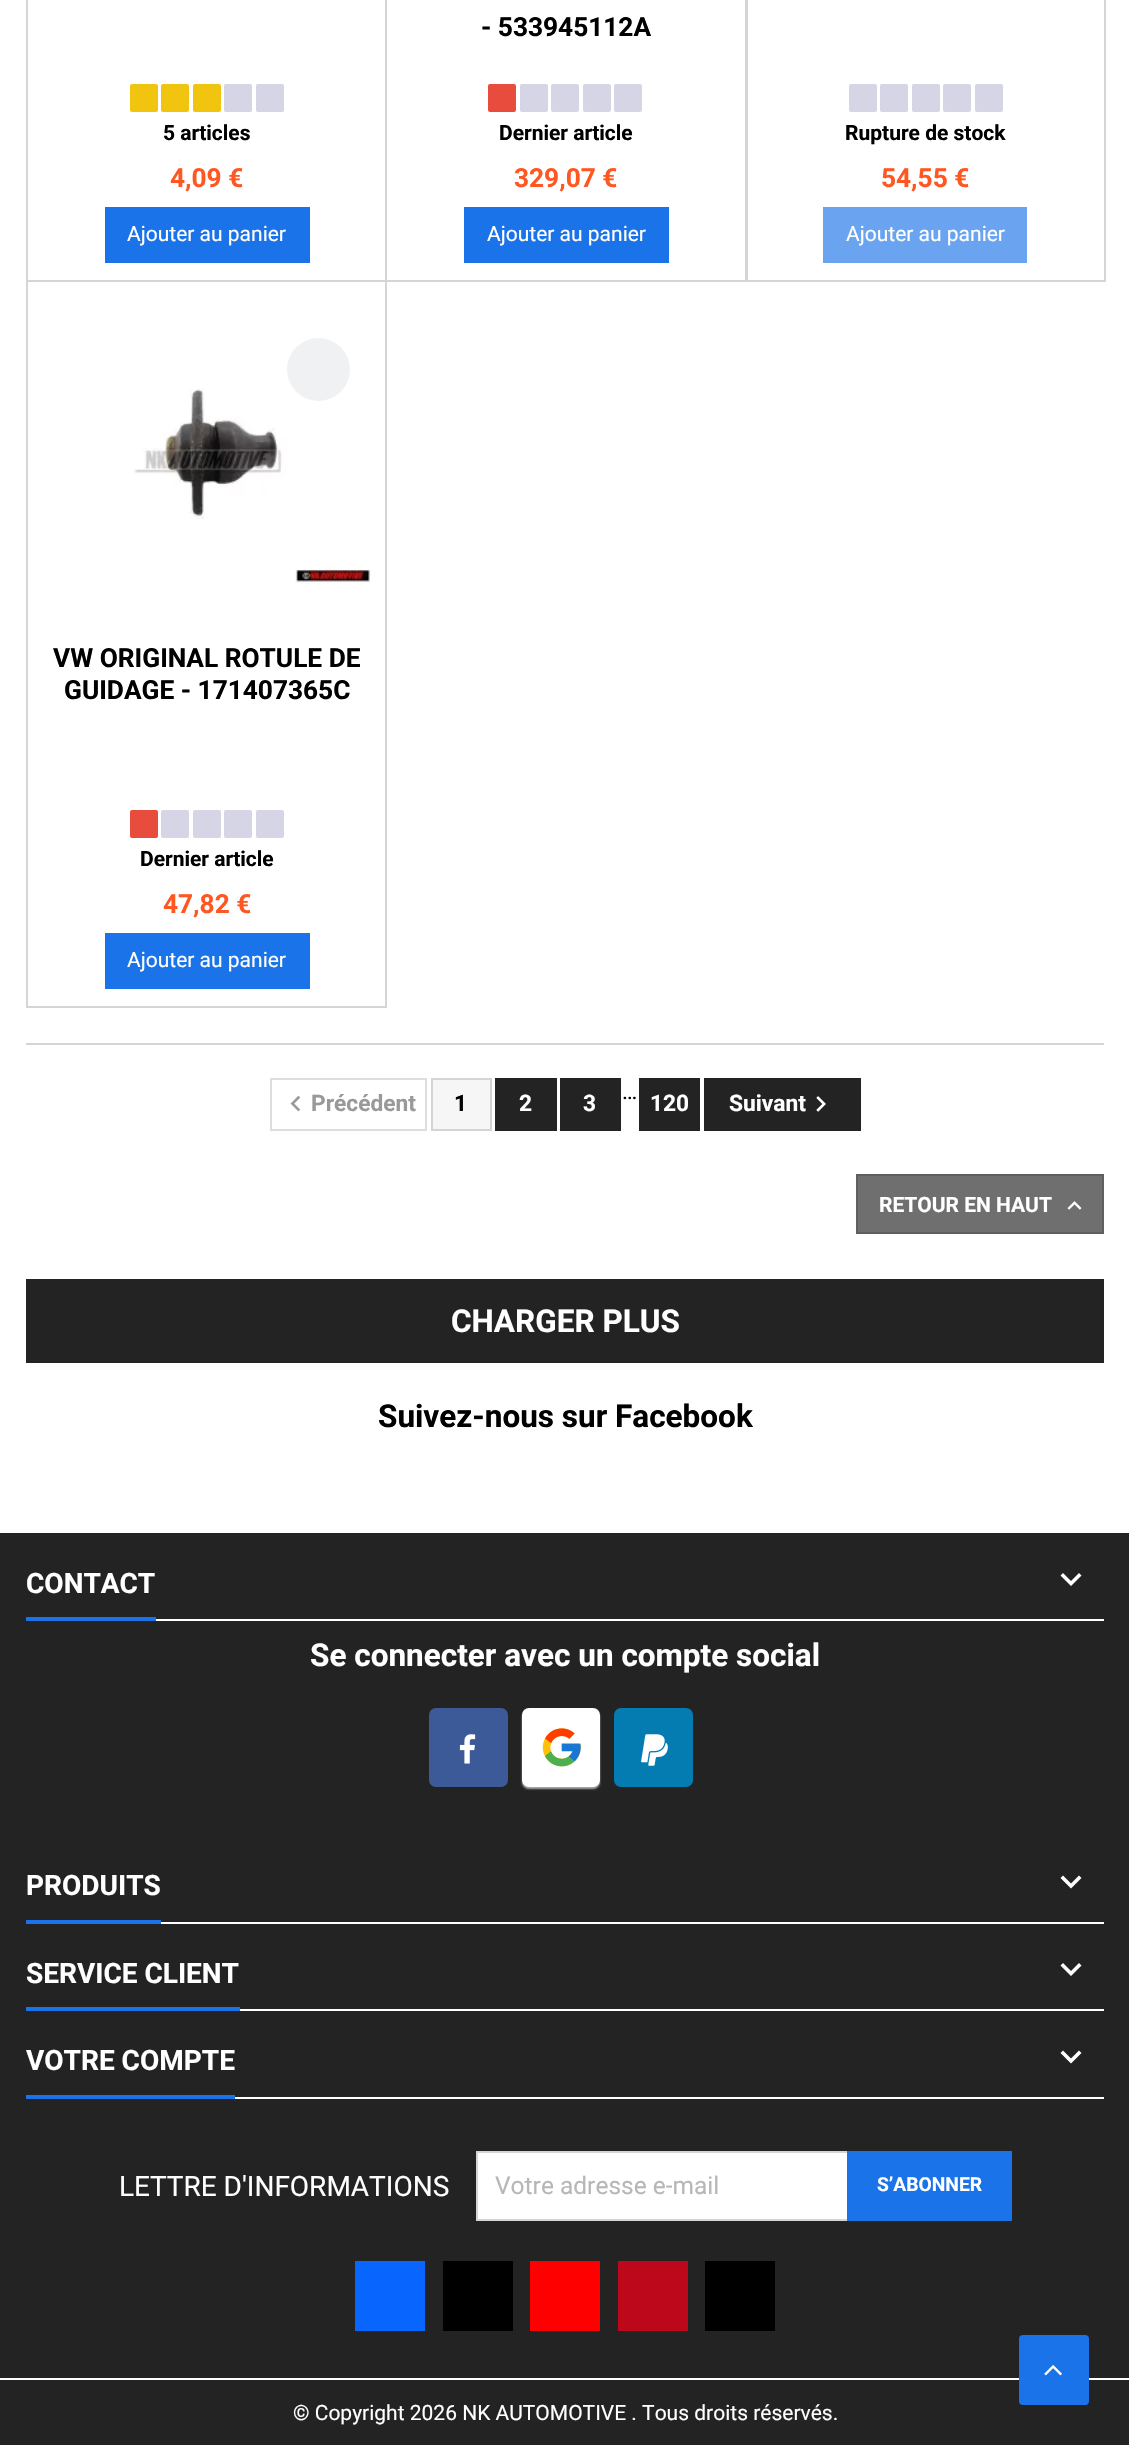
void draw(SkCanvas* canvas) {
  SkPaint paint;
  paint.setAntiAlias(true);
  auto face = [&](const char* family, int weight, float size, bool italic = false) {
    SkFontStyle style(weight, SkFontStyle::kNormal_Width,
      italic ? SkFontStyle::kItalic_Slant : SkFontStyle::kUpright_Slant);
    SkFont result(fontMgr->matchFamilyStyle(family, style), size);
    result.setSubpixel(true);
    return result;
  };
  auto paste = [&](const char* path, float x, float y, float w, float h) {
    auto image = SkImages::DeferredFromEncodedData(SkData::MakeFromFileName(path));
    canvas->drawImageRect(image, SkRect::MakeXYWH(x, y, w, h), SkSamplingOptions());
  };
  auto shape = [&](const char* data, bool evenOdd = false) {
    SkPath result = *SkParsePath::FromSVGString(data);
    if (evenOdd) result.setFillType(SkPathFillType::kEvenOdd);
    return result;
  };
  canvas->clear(0xffffffff);
  paint.setStroke(true);
  paint.setStrokeWidth(2);
  paint.setColor(0xffd6d4d4);
  canvas->drawRect(SkRect::MakeXYWH(27, -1, 359, 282), paint);
  paint.setStroke(false);
  paint.setColor(0xfff1c40f);
  canvas->drawRoundRect(SkRect::MakeXYWH(130, 84, 28, 28), 2, 2, paint);
  canvas->drawRoundRect(SkRect::MakeXYWH(161, 84, 28, 28), 2, 2, paint);
  canvas->drawRoundRect(SkRect::MakeXYWH(193, 84, 28, 28), 2, 2, paint);
  paint.setColor(0xffd5d5e5);
  canvas->drawRoundRect(SkRect::MakeXYWH(224, 84, 28, 28), 2, 2, paint);
  canvas->drawRoundRect(SkRect::MakeXYWH(256, 84, 28, 28), 2, 2, paint);
  paint.setColor(0xff1a73e8);
  canvas->drawRect(SkRect::MakeXYWH(105, 207, 205, 56), paint);
  paint.setStroke(true);
  paint.setColor(0xffd6d4d4);
  canvas->drawRect(SkRect::MakeXYWH(386, -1, 360, 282), paint);
  paint.setStroke(false);
  paint.setColor(0xffe84c3d);
  canvas->drawRoundRect(SkRect::MakeXYWH(488, 84, 28, 28), 2, 2, paint);
  paint.setColor(0xffd5d5e5);
  canvas->drawRoundRect(SkRect::MakeXYWH(520, 84, 28, 28), 2, 2, paint);
  canvas->drawRoundRect(SkRect::MakeXYWH(551, 84, 28, 28), 2, 2, paint);
  canvas->drawRoundRect(SkRect::MakeXYWH(583, 84, 28, 28), 2, 2, paint);
  canvas->drawRoundRect(SkRect::MakeXYWH(614, 84, 28, 28), 2, 2, paint);
  paint.setColor(0xff1a73e8);
  canvas->drawRect(SkRect::MakeXYWH(464, 207, 205, 56), paint);
  paint.setStroke(true);
  paint.setColor(0xffd6d4d4);
  canvas->drawRect(SkRect::MakeXYWH(747, -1, 358, 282), paint);
  paint.setStroke(false);
  paint.setColor(0xffd5d5e5);
  canvas->drawRoundRect(SkRect::MakeXYWH(849, 84, 28, 28), 2, 2, paint);
  canvas->drawRoundRect(SkRect::MakeXYWH(880, 84, 28, 28), 2, 2, paint);
  canvas->drawRoundRect(SkRect::MakeXYWH(912, 84, 28, 28), 2, 2, paint);
  canvas->drawRoundRect(SkRect::MakeXYWH(943, 84, 28, 28), 2, 2, paint);
  canvas->drawRoundRect(SkRect::MakeXYWH(975, 84, 28, 28), 2, 2, paint);
  paint.setColor(0xff6aa4f0);
  canvas->drawRect(SkRect::MakeXYWH(823, 207, 204, 56), paint);
  paint.setStroke(true);
  paint.setColor(0xffd6d4d4);
  canvas->drawRect(SkRect::MakeXYWH(27, 281, 359, 726), paint);
  paste("img/1.png", 134, 389, 237, 195);
  paint.setStroke(false);
  paint.setColor(0xffeff1f2);
  canvas->drawCircle(318.5f, 369.5f, 31.5f, paint);
  paint.setColor(0xffe84c3d);
  canvas->drawRoundRect(SkRect::MakeXYWH(130, 810, 28, 28), 2, 2, paint);
  paint.setColor(0xffd5d5e5);
  canvas->drawRoundRect(SkRect::MakeXYWH(161, 810, 28, 28), 2, 2, paint);
  canvas->drawRoundRect(SkRect::MakeXYWH(193, 810, 28, 28), 2, 2, paint);
  canvas->drawRoundRect(SkRect::MakeXYWH(224, 810, 28, 28), 2, 2, paint);
  canvas->drawRoundRect(SkRect::MakeXYWH(256, 810, 28, 28), 2, 2, paint);
  paint.setColor(0xff1a73e8);
  canvas->drawRect(SkRect::MakeXYWH(105, 933, 205, 56), paint);
  paint.setColor(0xffd6d4d4);
  canvas->drawRect(SkRect::MakeXYWH(26, 1043, 1078, 2), paint);
  paint.setStroke(true);
  paint.setColor(0xffdddddd);
  canvas->drawRect(SkRect::MakeXYWH(271, 1079, 155, 51), paint);
  paste("img/2.png", 290, 1095, 11, 17);
  paint.setStroke(false);
  paint.setColor(0xfff6f6f6);
  canvas->drawRect(SkRect::MakeXYWH(432, 1079, 59, 51), paint);
  paint.setStroke(true);
  paint.setColor(0xffd4d4d4);
  canvas->drawRect(SkRect::MakeXYWH(432, 1079, 59, 51), paint);
  paint.setStroke(false);
  {
    const struct { float x, y, w, h; SkColor color; } items[] = {
      {495, 1078, 62, 53, 0xff232323},
      {560, 1078, 61, 53, 0xff232323},
      {639, 1078, 61, 53, 0xff232323},
      {704, 1078, 157, 53, 0xff232323},
    };
    for (auto [x, y, w, h, color] : items) {
      paint.setColor(color);
      canvas->drawRect(SkRect::MakeXYWH(x, y, w, h), paint);
    }
  }
  paste("img/3.png", 816, 1096, 10, 16);
  paint.setColor(0xff6f6f6f);
  canvas->drawRect(SkRect::MakeXYWH(857, 1175, 246, 58), paint);
  paint.setStroke(true);
  paint.setColor(0xff5f5f5f);
  canvas->drawRect(SkRect::MakeXYWH(857, 1175, 246, 58), paint);
  paste("img/4.png", 1067, 1201, 15, 9);
  paint.setStroke(false);
  {
    const struct { float x, y, w, h; SkColor color; } items[] = {
      {26, 1279, 1078, 84, 0xff232323},
      {0, 1533, 1129, 845, 0xff232323},
      {156, 1619, 948, 2, 0xffffffff},
      {26, 1617, 130, 4, 0xff1a73e8},
    };
    for (auto [x, y, w, h, color] : items) {
      paint.setColor(color);
      canvas->drawRect(SkRect::MakeXYWH(x, y, w, h), paint);
    }
  }
  paint.setColor(0xffffffff);
  canvas->drawPath(shape("M1063 1573L1071 1581L1079 1573L1081.5 1575.5L1071 1586L1060.5 1575.5Z"), paint);
  paint.setColor(0xff3c5a98);
  canvas->drawRoundRect(SkRect::MakeXYWH(429, 1708, 79, 79), 7, 7, paint);
  paste("img/5.png", 459, 1734, 17, 30);
  paint.setColor(0xffaaaaaa);
  paint.setMaskFilter(SkMaskFilter::MakeBlur(kNormal_SkBlurStyle, 1));
  canvas->drawRoundRect(SkRect::MakeXYWH(522, 1710, 78, 79), 7, 7, paint);
  paint.setMaskFilter(nullptr);
  paint.setColor(0xffffffff);
  canvas->drawRoundRect(SkRect::MakeXYWH(522, 1708, 78, 79), 7, 7, paint);
  paste("img/6.png", 542, 1728, 39, 39);
  paint.setColor(0xff047cb1);
  canvas->drawRoundRect(SkRect::MakeXYWH(614, 1708, 79, 79), 7, 7, paint);
  paste("img/7.png", 641, 1734, 27, 32);
  paint.setColor(0xffffffff);
  canvas->drawRect(SkRect::MakeXYWH(161, 1922, 943, 2), paint);
  paint.setColor(0xff1a73e8);
  canvas->drawRect(SkRect::MakeXYWH(26, 1920, 135, 4), paint);
  paint.setColor(0xffffffff);
  canvas->drawPath(shape("M1063 1875.5L1071 1883.5L1079 1875.5L1081.5 1878L1071 1888.5L1060.5 1878Z"), paint);
  canvas->drawRect(SkRect::MakeXYWH(240, 2009, 864, 2), paint);
  paint.setColor(0xff1a73e8);
  canvas->drawRect(SkRect::MakeXYWH(26, 2007, 214, 4), paint);
  paint.setColor(0xffffffff);
  canvas->drawPath(shape("M1063 1963L1071 1971L1079 1963L1081.5 1965.5L1071 1976L1060.5 1965.5Z"), paint);
  canvas->drawRect(SkRect::MakeXYWH(235, 2097, 869, 2), paint);
  paint.setColor(0xff1a73e8);
  canvas->drawRect(SkRect::MakeXYWH(26, 2095, 209, 4), paint);
  paint.setColor(0xffffffff);
  canvas->drawPath(shape("M1063 2050.5L1071 2058.5L1079 2050.5L1081.5 2053L1071 2063.5L1060.5 2053Z"), paint);
  paint.setColor(0xff232323);
  canvas->drawRect(SkRect::MakeXYWH(0, 2380, 1129, 65), paint);
  paint.setColor(0x1a000000);
  paint.setMaskFilter(SkMaskFilter::MakeBlur(kNormal_SkBlurStyle, 1));
  canvas->drawRoundRect(SkRect::MakeXYWH(1019, 2336, 70, 70), 4, 4, paint);
  paint.setMaskFilter(nullptr);
  paint.setColor(0xff1a73e8);
  canvas->drawRoundRect(SkRect::MakeXYWH(1019, 2335, 70, 70), 4, 4, paint);
  paste("img/8.png", 1044, 2365, 18, 11);
  {
    const struct { float x, y, w, h; SkColor color; } items[] = {
      {478, 2153, 369, 66, 0xffffffff},
      {847, 2151, 165, 70, 0xff1a73e8},
      {355, 2261, 70, 70, 0xff0865fe},
      {443, 2261, 70, 70, 0xff000000},
      {530, 2261, 70, 70, 0xffff0000},
      {618, 2261, 70, 70, 0xffbd081c},
      {705, 2261, 70, 70, 0xff000000},
    };
    for (auto [x, y, w, h, color] : items) {
      paint.setColor(color);
      canvas->drawRect(SkRect::MakeXYWH(x, y, w, h), paint);
    }
  }
  auto f0 = face("Roboto", 700, 21);
  canvas->drawString("5 articles", 163, 140, f0, paint);
  auto f1 = face("Roboto", 700, 26.25f);
  paint.setColor(0xffff5722);
  canvas->drawString("4,09 €", 170, 187, f1, paint);
  auto f2 = face("Roboto", 400, 21);
  paint.setColor(0xffffffff);
  canvas->drawString("Ajouter au panier", 127, 241, f2, paint);
  paint.setColor(0xff000000);
  canvas->drawString("- 533945112A", 481, 36, f1, paint);
  canvas->drawString("Dernier article", 499, 140, f0, paint);
  paint.setColor(0xffff5722);
  canvas->drawString("329,07 €", 514, 187, f1, paint);
  paint.setColor(0xffffffff);
  canvas->drawString("Ajouter au panier", 487, 241, f2, paint);
  paint.setColor(0xff000000);
  canvas->drawString("Rupture de stock", 845, 140, f0, paint);
  paint.setColor(0xffff5722);
  canvas->drawString("54,55 €", 881, 187, f1, paint);
  paint.setColor(0xffffffff);
  canvas->drawString("Ajouter au panier", 846, 241, f2, paint);
  paint.setColor(0xff000000);
  canvas->drawString("VW ORIGINAL ROTULE DE", 53, 667, f1, paint);
  canvas->drawString("GUIDAGE - 171407365C", 64, 699, f1, paint);
  canvas->drawString("Dernier article", 140, 866, f0, paint);
  paint.setColor(0xffff5722);
  canvas->drawString("47,82 €", 163, 913, f1, paint);
  paint.setColor(0xffffffff);
  canvas->drawString("Ajouter au panier", 127, 967, f2, paint);
  auto f3 = face("Roboto", 700, 22.75f);
  paint.setColor(0xff999999);
  canvas->drawString("Précédent", 311, 1111, f3, paint);
  paint.setColor(0xff000000);
  canvas->drawString("1", 454, 1111, f3, paint);
  paint.setColor(0xffffffff);
  canvas->drawString("2", 519, 1111, f3, paint);
  canvas->drawString("3", 583, 1111, f3, paint);
  auto f4 = face("Roboto", 400, 22.75f);
  paint.setColor(0xff000000);
  canvas->drawString("…", 622, 1099, f4, paint);
  paint.setColor(0xffffffff);
  canvas->drawString("120", 650, 1111, f3, paint);
  canvas->drawString("Suivant", 729, 1111, f3, paint);
  canvas->drawString("RETOUR EN HAUT", 879, 1212, f0, paint);
  auto f5 = face("Roboto", 700, 31.5f);
  canvas->drawString("CHARGER PLUS", 451, 1332, f5, paint);
  paint.setColor(0xff000000);
  canvas->drawString("Suivez-nous sur Facebook", 378, 1427, f5, paint);
  auto f6 = face("Roboto", 700, 28);
  paint.setColor(0xffffffff);
  canvas->drawString("CONTACT", 26, 1593, f6, paint);
  canvas->drawString("Se connecter avec un compte social", 310, 1666, f5, paint);
  {
    const struct { const char* s; float x, y; } items[] = {
      {"PRODUITS", 26, 1895},
      {"SERVICE CLIENT", 26, 1983},
      {"VOTRE COMPTE", 26, 2070},
    };
    for (auto [s, x, y] : items) {
      canvas->drawString(s, x, y, f6, paint);
    }
  }
  auto f7 = face("Roboto", 400, 28);
  canvas->drawString("LETTRE D'INFORMATIONS", 119, 2196, f7, paint);
  auto f8 = face("Roboto", 700, 19.25f);
  canvas->drawString("S’ABONNER", 877, 2191, f8, paint);
  canvas->save();
  canvas->clipRect(SkRect::MakeXYWH(476, 2151, 371, 70));
  paint.setStroke(true);
  paint.setColor(0xffd6d4d4);
  canvas->drawRect(SkRect::MakeXYWH(477, 2152, 444, 68), paint);
  canvas->restore();
  auto f9 = face("Roboto", 400, 24.5f);
  paint.setStroke(false);
  paint.setColor(0xffb7b7b7);
  canvas->drawString("Votre adresse e-mail", 495, 2194, f9, paint);
  paint.setColor(0xffffffff);
  canvas->drawString("© Copyright 2026 NK AUTOMOTIVE . Tous droits réservés.", 293, 2420, f2, paint);
}
